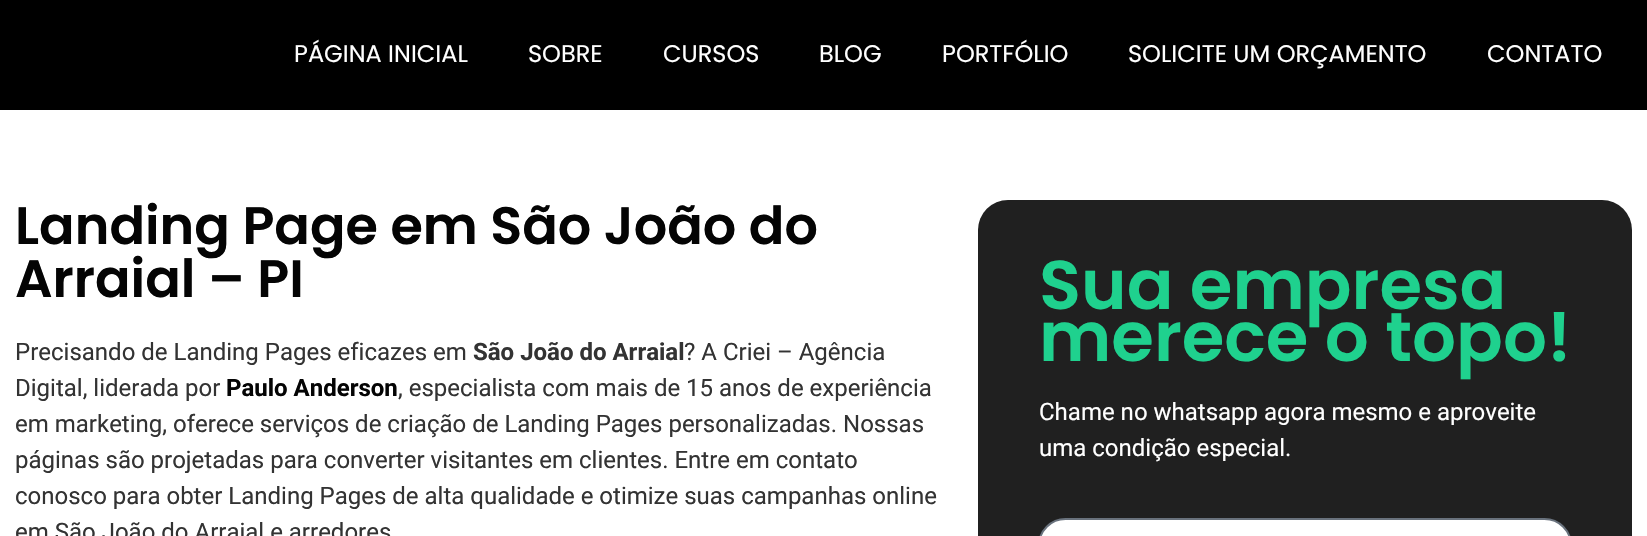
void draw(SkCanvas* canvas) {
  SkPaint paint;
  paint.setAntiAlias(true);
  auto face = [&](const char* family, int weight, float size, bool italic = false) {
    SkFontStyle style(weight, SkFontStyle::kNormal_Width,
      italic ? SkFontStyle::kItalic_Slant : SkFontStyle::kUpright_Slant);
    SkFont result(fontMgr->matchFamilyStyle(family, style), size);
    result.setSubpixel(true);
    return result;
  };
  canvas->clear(0xffffffff);
  paint.setColor(0xff000000);
  canvas->drawRect(SkRect::MakeXYWH(0, 0, 1647, 110), paint);
  paint.setColor(0xff202020);
  canvas->drawRoundRect(SkRect::MakeXYWH(978, 200, 654, 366), 30, 30, paint);
  paint.setColor(0xffffffff);
  canvas->drawRoundRect(SkRect::MakeXYWH(1039, 519, 532, 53), 34, 34, paint);
  paint.setStroke(true);
  paint.setStrokeWidth(2);
  paint.setColor(0xff69727d);
  canvas->drawRoundRect(SkRect::MakeXYWH(1039, 519, 532, 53), 34, 34, paint);
  auto f0 = face("Poppins", 400, 24);
  paint.setStroke(false);
  paint.setColor(0xffffffff);
  {
    const struct { const char* s; float x, y; } items[] = {
      {"PÁGINA INICIAL", 294, 62},
      {"SOBRE", 528, 62},
      {"CURSOS", 663, 62},
      {"BLOG", 819, 62},
      {"PORTFÓLIO", 942, 62},
      {"SOLICITE UM ORÇAMENTO", 1128, 62},
      {"CONTATO", 1487, 62},
    };
    for (auto [s, x, y] : items) {
      canvas->drawString(s, x, y, f0, paint);
    }
  }
  auto f1 = face("Poppins", 600, 52.5f);
  paint.setColor(0xff040404);
  canvas->drawString("Landing Page em São João do", 15, 244, f1, paint);
  canvas->drawString("Arraial – PI", 15, 297, f1, paint);
  auto f2 = face("Roboto", 400, 24);
  paint.setColor(0xff333333);
  canvas->drawString("Precisando de Landing Pages eficazes em", 15, 360, f2, paint);
  auto f3 = face("Roboto", 700, 24);
  canvas->drawString("São João do Arraial", 473, 360, f3, paint);
  canvas->drawString("? A Criei – Agência", 684, 360, f2, paint);
  canvas->drawString("Digital, liderada por", 15, 396, f2, paint);
  paint.setColor(0xff040404);
  canvas->drawString("Paulo Anderson", 226, 396, f3, paint);
  paint.setColor(0xff333333);
  {
    const struct { const char* s; float x, y; } items[] = {
      {", especialista com mais de 15 anos de experiência", 398, 396},
      {"em marketing, oferece serviços de criação de Landing Pages personalizadas. Nossas", 15, 432},
      {"páginas são projetadas para converter visitantes em clientes. Entre em contato", 15, 468},
      {"conosco para obter Landing Pages de alta qualidade e otimize suas campanhas online", 15, 504},
      {"em São João do Arraial e arredores", 15, 540},
    };
    for (auto [s, x, y] : items) {
      canvas->drawString(s, x, y, f2, paint);
    }
  }
  auto f4 = face("Poppins", 600, 69);
  paint.setColor(0xff1fd18e);
  canvas->drawString("Sua empresa", 1039, 309, f4, paint);
  canvas->drawString("merece o topo!", 1039, 361, f4, paint);
  paint.setColor(0xffffffff);
  canvas->drawString("Chame no whatsapp agora mesmo e aproveite", 1039, 420, f2, paint);
  canvas->drawString("uma condição especial.", 1039, 456, f2, paint);
}
